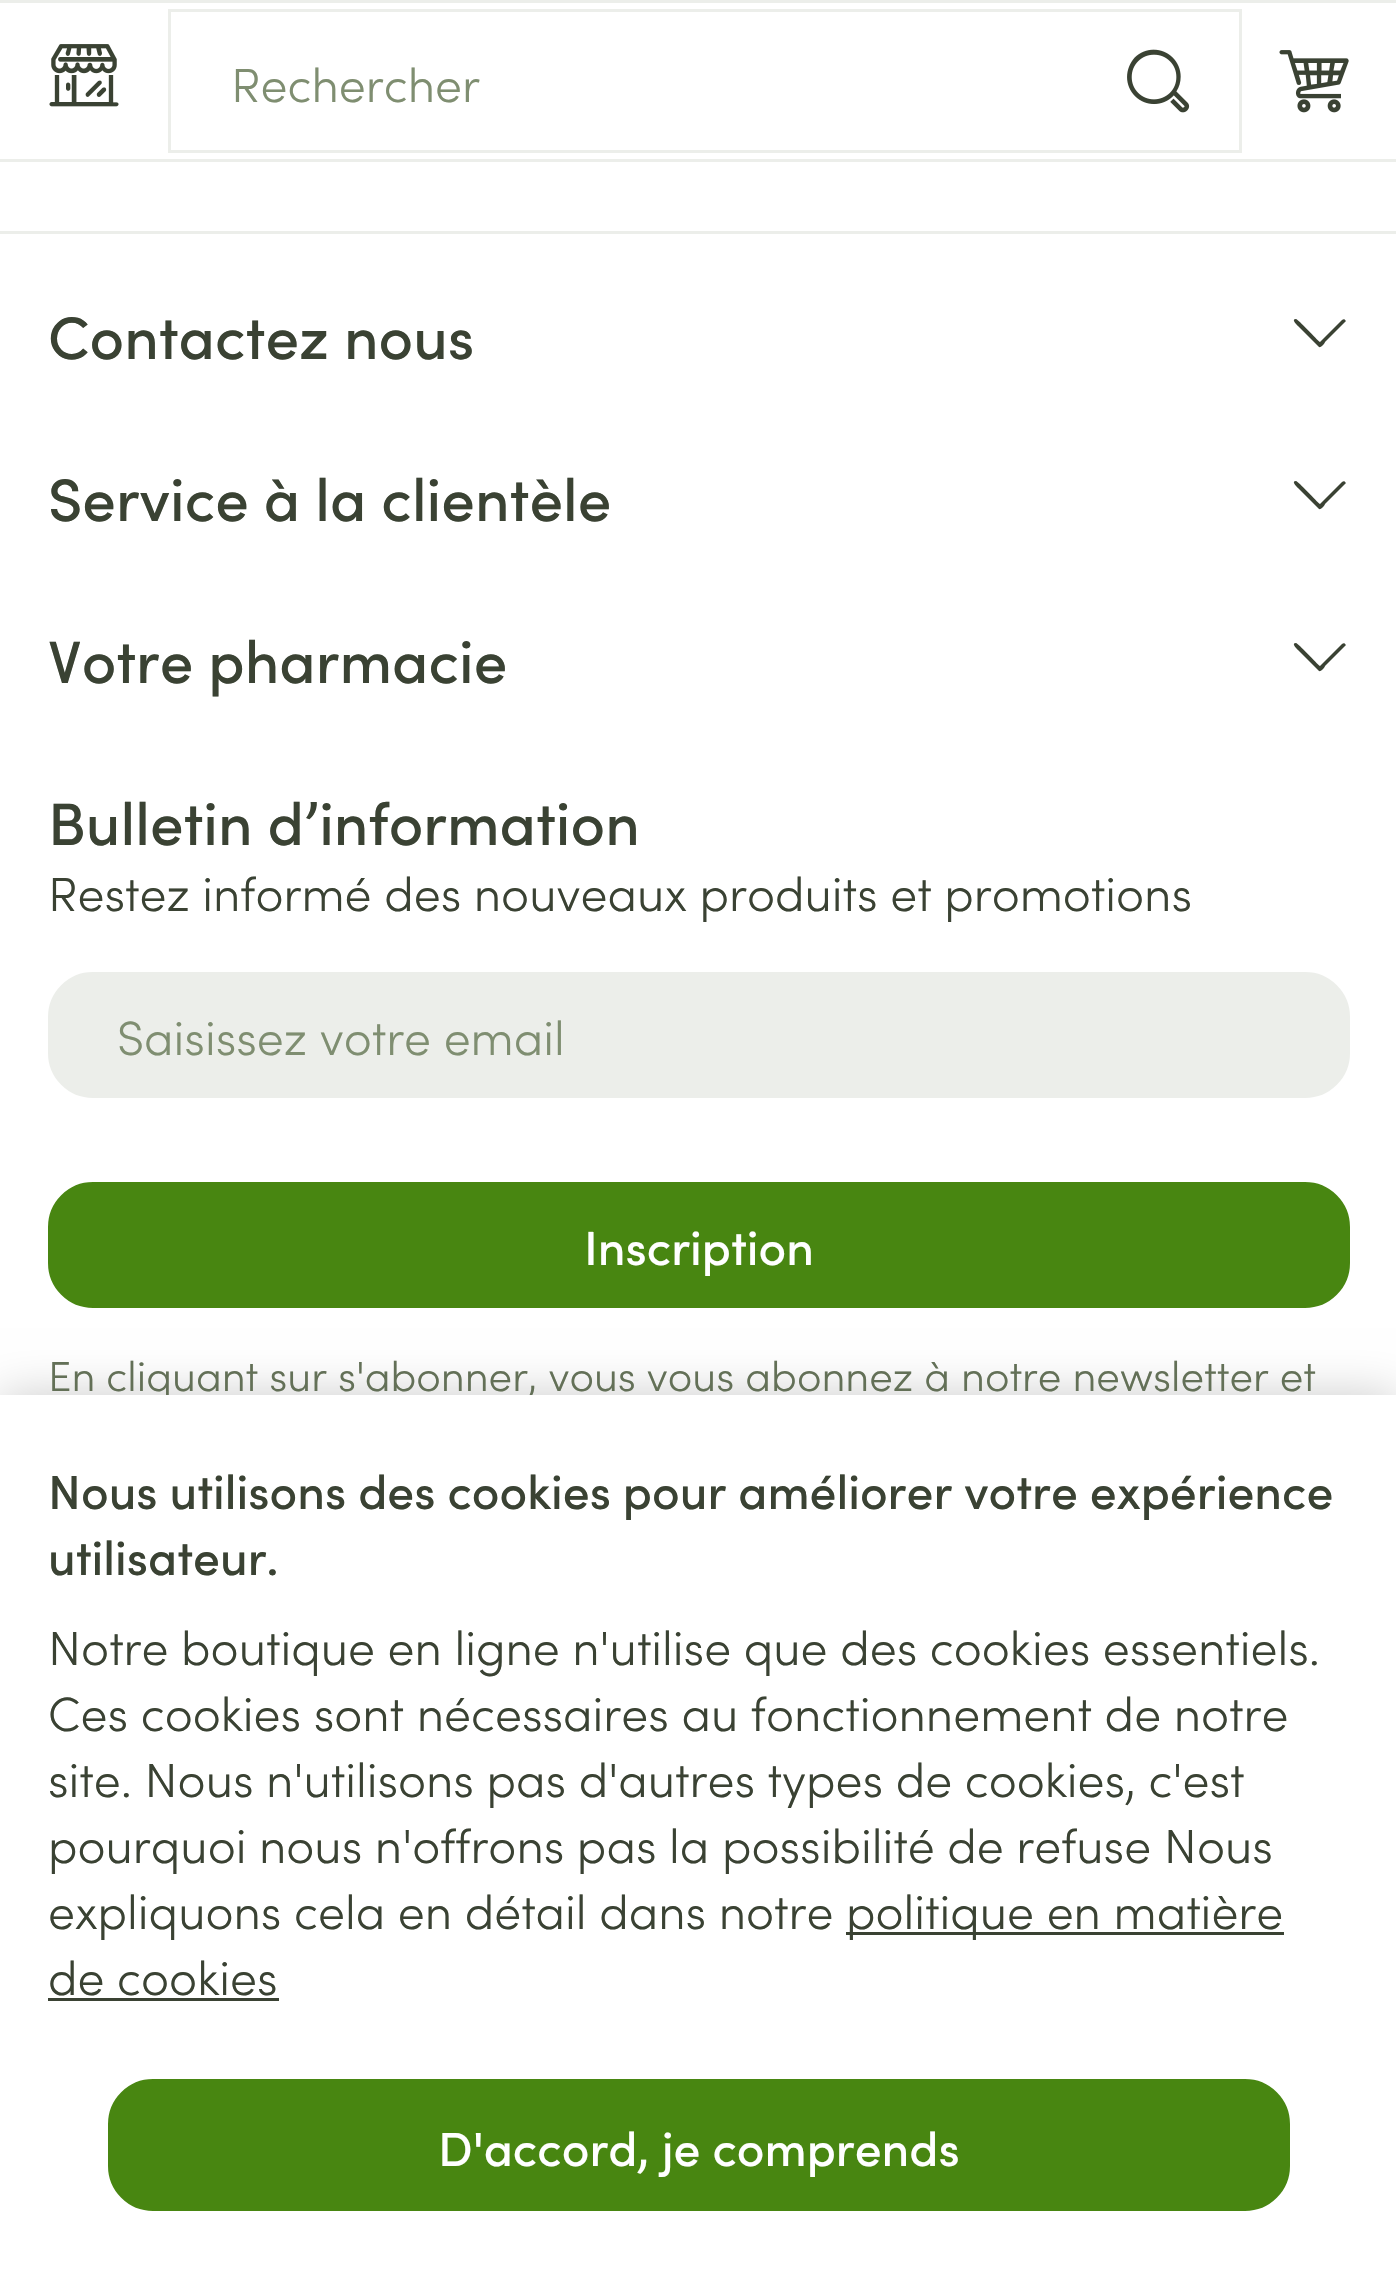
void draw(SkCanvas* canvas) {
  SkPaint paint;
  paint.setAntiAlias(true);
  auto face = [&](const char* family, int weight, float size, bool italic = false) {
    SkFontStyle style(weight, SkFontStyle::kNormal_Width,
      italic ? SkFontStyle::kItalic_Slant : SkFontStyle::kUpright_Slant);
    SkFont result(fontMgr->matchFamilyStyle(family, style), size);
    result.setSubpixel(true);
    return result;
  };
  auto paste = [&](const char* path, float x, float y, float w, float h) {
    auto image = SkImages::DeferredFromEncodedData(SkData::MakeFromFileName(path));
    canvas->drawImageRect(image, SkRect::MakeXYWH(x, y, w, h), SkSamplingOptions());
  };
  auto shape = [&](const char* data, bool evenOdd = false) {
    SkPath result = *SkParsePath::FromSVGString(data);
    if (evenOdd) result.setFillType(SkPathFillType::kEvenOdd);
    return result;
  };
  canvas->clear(0xffffffff);
  paint.setColor(0xffeceeea);
  canvas->drawRect(SkRect::MakeXYWH(0, 0, 1396, 3), paint);
  canvas->drawRect(SkRect::MakeXYWH(0, 159, 1396, 3), paint);
  paste("img/1.png", 49, 44, 70, 63);
  paint.setStroke(true);
  paint.setStrokeWidth(3);
  canvas->drawRect(SkRect::MakeXYWH(169.5f, 10.5f, 1071, 141), paint);
  paste("img/2.png", 1127, 49, 63, 64);
  paste("img/3.png", 1279, 50, 70, 63);
  paint.setStroke(false);
  canvas->drawRect(SkRect::MakeXYWH(0, 231, 1396, 3), paint);
  paint.setColor(0xff3a4233);
  canvas->drawPath(shape("M1345 320C1345 319 1343 319 1342 320L1320 342C1317 340 1298 319 1296 319C1291 319 1296 324 1298 326L1319 347C1321 348 1325 343 1325 342L1346 321Z"), paint);
  canvas->drawPath(shape("M1345 482C1345 481 1343 481 1342 482L1320 504C1317 502 1298 481 1296 481C1291 481 1296 486 1298 488L1319 509C1321 510 1325 505 1325 504L1346 483Z"), paint);
  canvas->drawPath(shape("M1345 644C1345 643 1343 643 1342 644L1320 666C1317 664 1298 643 1296 643C1291 643 1296 648 1298 650L1319 671C1321 672 1325 667 1325 666L1346 645Z"), paint);
  paint.setColor(0xffeceeea);
  canvas->drawRoundRect(SkRect::MakeXYWH(49.5f, 973.5f, 1299, 123), 43.5f, 43.5f, paint);
  paint.setStroke(true);
  canvas->drawRoundRect(SkRect::MakeXYWH(49.5f, 973.5f, 1299, 123), 43.5f, 43.5f, paint);
  paint.setStroke(false);
  paint.setColor(0xff488611);
  canvas->drawRoundRect(SkRect::MakeXYWH(49.5f, 1183.5f, 1299, 123), 43.5f, 43.5f, paint);
  paint.setStroke(true);
  canvas->drawRoundRect(SkRect::MakeXYWH(49.5f, 1183.5f, 1299, 123), 43.5f, 43.5f, paint);
  paint.setStroke(false);
  paint.setColor(0x33000000);
  paint.setMaskFilter(SkMaskFilter::MakeBlur(kNormal_SkBlurStyle, 22.5f));
  canvas->drawRect(SkRect::MakeXYWH(0, 1395, 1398, 876), paint);
  paint.setMaskFilter(nullptr);
  auto f0 = face("Sofia", 300, 48);
  paint.setColor(0xff7f8e71);
  canvas->drawString("Rechercher", 231, 102, f0, paint);
  auto f1 = face("Sofia", 500, 60);
  paint.setColor(0xff3a4233);
  {
    const struct { const char* s; float x, y; } items[] = {
      {"Contactez nous", 48, 359},
      {"Service à la clientèle", 48, 521},
      {"Votre pharmacie", 48, 683},
      {"Bulletin d’information", 48, 845},
    };
    for (auto [s, x, y] : items) {
      canvas->drawString(s, x, y, f1, paint);
    }
  }
  canvas->drawString("Restez informé des nouveaux produits et promotions", 48, 911, f0, paint);
  paint.setColor(0xff7f8e71);
  canvas->drawString("Saisissez votre email", 117, 1055, f0, paint);
  auto f2 = face("Sofia", 500, 48);
  paint.setColor(0xffffffff);
  canvas->drawString("Inscription", 584, 1265, f2, paint);
  auto f3 = face("Sofia", 300, 42);
  paint.setColor(0xff637057);
  canvas->drawString("En cliquant sur s'abonner, vous vous abonnez à notre newsletter et", 48, 1391, f3, paint);
  paint.setColor(0xffffffff);
  canvas->drawRect(SkRect::MakeXYWH(0, 1395, 1396, 876), paint);
  paint.setColor(0xff3a4233);
  canvas->drawString("Nous utilisons des cookies pour améliorer votre expérience", 48, 1509, f2, paint);
  canvas->drawString("utilisateur.", 48, 1575, f2, paint);
  {
    const struct { const char* s; float x, y; } items[] = {
      {"Notre boutique en ligne n'utilise que des cookies essentiels.", 48, 1665},
      {"Ces cookies sont nécessaires au fonctionnement de notre", 48, 1731},
      {"site. Nous n'utilisons pas d'autres types de cookies, c'est", 48, 1797},
      {"pourquoi nous n'offrons pas la possibilité de refuse Nous", 48, 1863},
      {"expliquons cela en détail dans notre", 48, 1929},
    };
    for (auto [s, x, y] : items) {
      canvas->drawString(s, x, y, f0, paint);
    }
  }
  canvas->drawRect(SkRect::MakeXYWH(846, 1932, 438, 3), paint);
  canvas->drawString("politique en matière", 846, 1929, f0, paint);
  canvas->drawString("de cookies", 48, 1995, f0, paint);
  canvas->drawRect(SkRect::MakeXYWH(48, 1998, 231, 3), paint);
  paint.setColor(0xff488611);
  canvas->drawRoundRect(SkRect::MakeXYWH(109.5f, 2080.5f, 1179, 129), 43.5f, 43.5f, paint);
  paint.setStroke(true);
  canvas->drawRoundRect(SkRect::MakeXYWH(109.5f, 2080.5f, 1179, 129), 43.5f, 43.5f, paint);
  paint.setStroke(false);
  paint.setColor(0xffffffff);
  canvas->drawString("D'accord, je comprends", 438, 2166, f2, paint);
}
